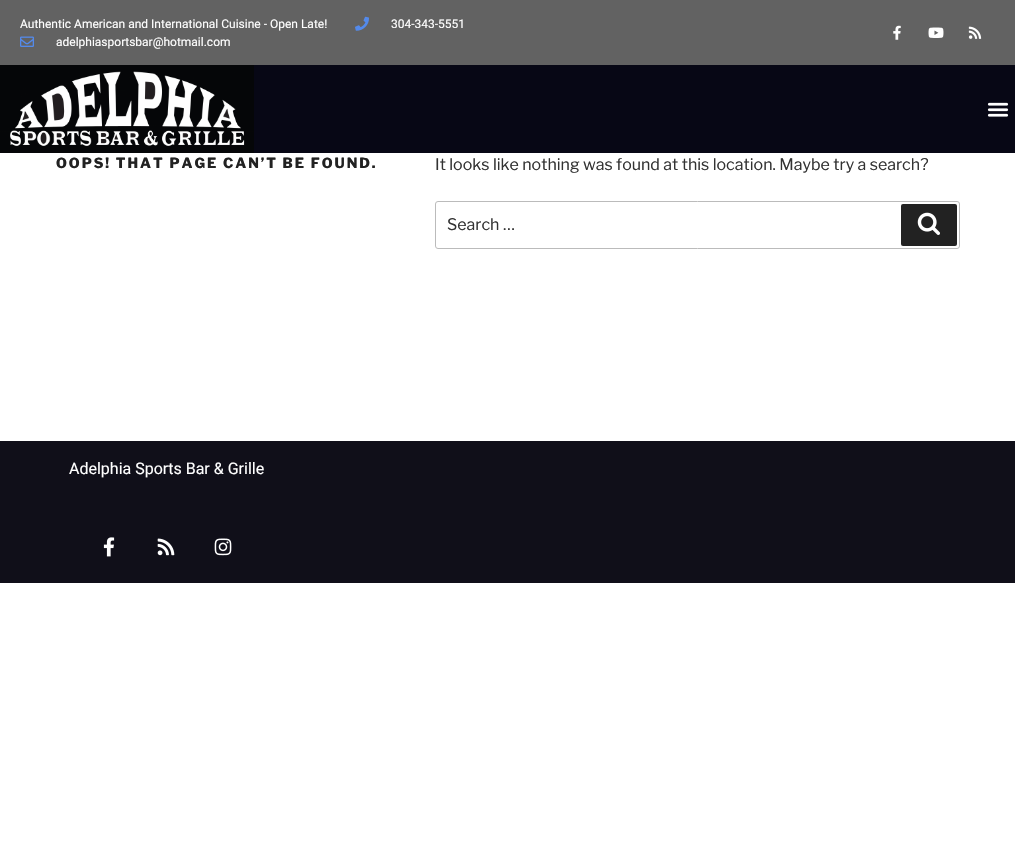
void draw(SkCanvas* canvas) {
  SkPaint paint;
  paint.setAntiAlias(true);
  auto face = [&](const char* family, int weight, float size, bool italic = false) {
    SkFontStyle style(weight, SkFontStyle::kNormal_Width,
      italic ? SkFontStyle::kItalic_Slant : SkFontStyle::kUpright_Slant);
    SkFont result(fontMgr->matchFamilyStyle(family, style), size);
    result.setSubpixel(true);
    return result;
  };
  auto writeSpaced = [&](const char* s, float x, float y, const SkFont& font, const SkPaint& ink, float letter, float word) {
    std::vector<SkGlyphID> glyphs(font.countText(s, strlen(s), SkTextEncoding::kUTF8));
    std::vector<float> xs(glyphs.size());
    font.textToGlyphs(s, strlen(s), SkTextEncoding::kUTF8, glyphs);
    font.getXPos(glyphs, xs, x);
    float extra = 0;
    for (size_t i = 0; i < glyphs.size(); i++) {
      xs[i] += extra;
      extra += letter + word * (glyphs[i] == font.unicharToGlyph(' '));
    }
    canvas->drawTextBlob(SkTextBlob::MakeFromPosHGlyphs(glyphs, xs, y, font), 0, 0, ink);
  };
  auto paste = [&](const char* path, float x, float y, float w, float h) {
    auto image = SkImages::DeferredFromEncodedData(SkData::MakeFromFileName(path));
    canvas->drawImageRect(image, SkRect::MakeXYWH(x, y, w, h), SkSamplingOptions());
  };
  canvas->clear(0xffffffff);
  paint.setColor(0xff626262);
  canvas->drawRect(SkRect::MakeXYWH(0, 0, 1015, 65), paint);
  paste("img/1.png", 355, 16, 14, 15);
  paste("img/2.png", 20, 36, 14, 11);
  paste("img/3.png", 893, 25, 8, 15);
  paste("img/4.png", 928, 27, 16, 11);
  paste("img/5.png", 968, 26, 14, 13);
  paint.setColor(0xff070715);
  canvas->drawRect(SkRect::MakeXYWH(254, 65, 761, 88), paint);
  paste("img/6.png", 0, 65, 254, 88);
  paste("img/7.png", 987, 102, 22, 15);
  paint.setStroke(true);
  paint.setStrokeWidth(1);
  paint.setColor(0xffbbbbbb);
  canvas->drawRoundRect(SkRect::MakeXYWH(435.5f, 201.5f, 524, 47), 2.5f, 2.5f, paint);
  paint.setStroke(false);
  paint.setColor(0xff222222);
  canvas->drawRoundRect(SkRect::MakeXYWH(901, 204, 56, 42), 2, 2, paint);
  paste("img/8.png", 917, 212, 23, 23);
  paint.setColor(0xff100f19);
  canvas->drawRect(SkRect::MakeXYWH(0, 441, 1015, 142), paint);
  paste("img/9.png", 103, 537, 12, 20);
  paste("img/10.png", 157, 538, 18, 18);
  paste("img/11.png", 214, 538, 18, 18);
  auto f0 = face("Roboto", 400, 12);
  paint.setColor(0xffffffff);
  {
    const struct { const char* s; float x, y; } items[] = {
      {"Authentic American and International Cuisine - Open Late!", 20, 28},
      {"304-343-5551", 391, 28},
      {"adelphiasportsbar@hotmail.com", 56, 46},
    };
    for (auto [s, x, y] : items) {
      canvas->drawString(s, x, y, f0, paint);
    }
  }
  auto f1 = face("Libre Franklin", 100, 14);
  paint.setColor(0xff222222);
  writeSpaced("OOPS! THAT PAGE CAN’T BE FOUND.", 56, 168, f1, paint, 1.95f, 0);
  auto f2 = face("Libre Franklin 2", 100, 16);
  paint.setColor(0xff333333);
  canvas->drawString("It looks like nothing was found at this location. Maybe try a search?", 435, 170, f2, paint);
  canvas->drawString("Search …", 447, 230, f2, paint);
  auto f3 = face("Roboto", 400, 16);
  paint.setColor(0xffffffff);
  canvas->drawString("Adelphia Sports Bar & Grille", 69, 474, f3, paint);
}
